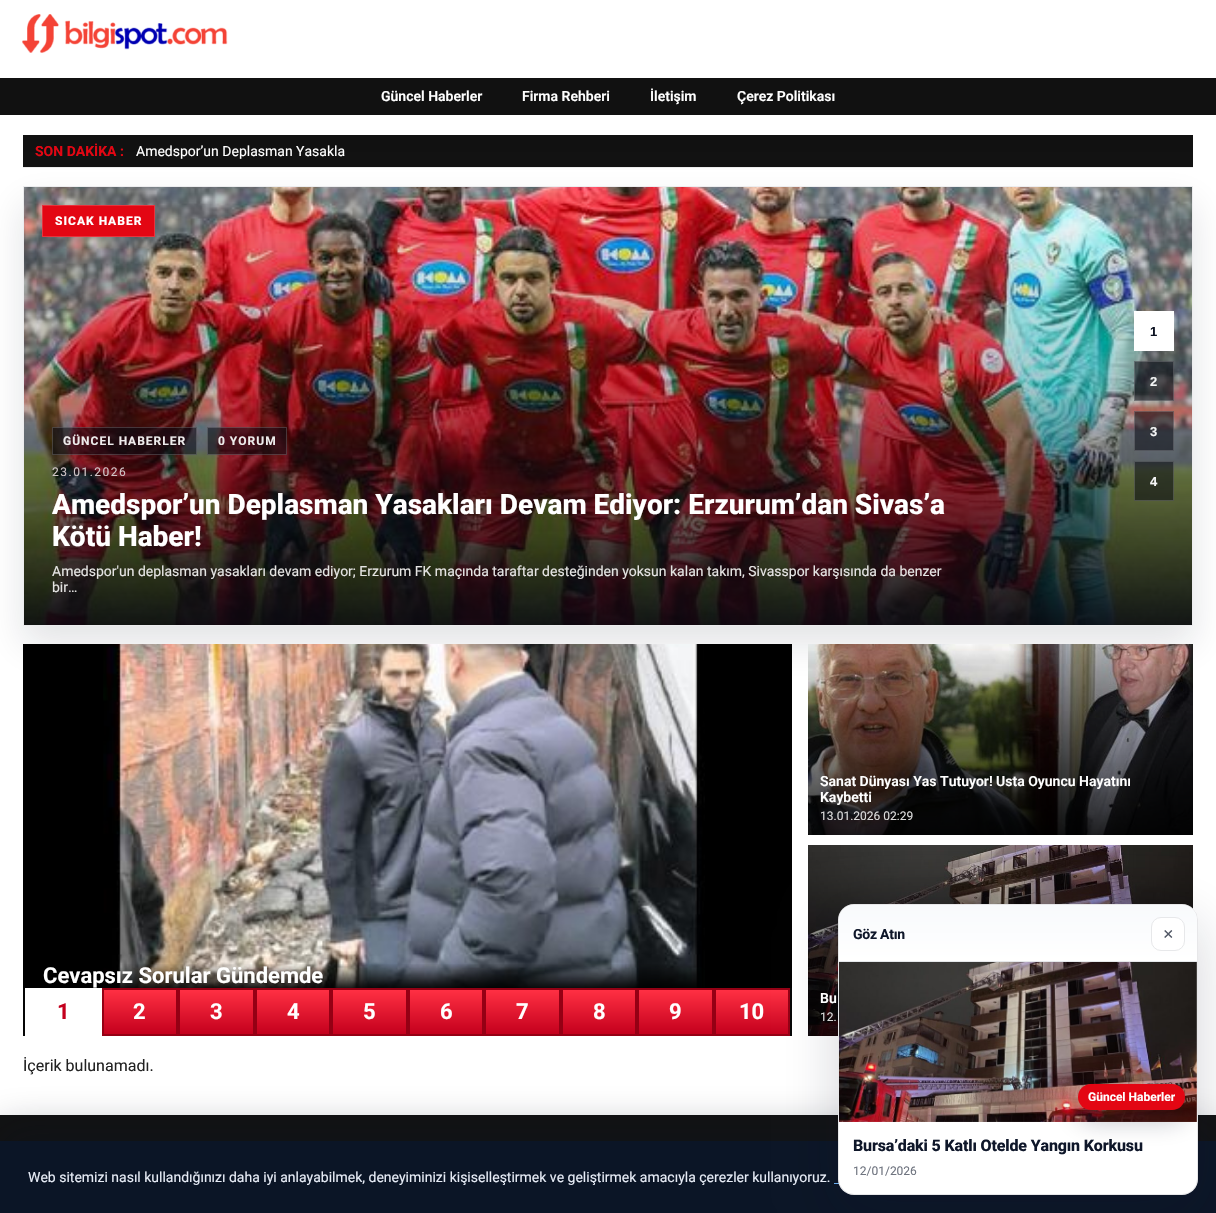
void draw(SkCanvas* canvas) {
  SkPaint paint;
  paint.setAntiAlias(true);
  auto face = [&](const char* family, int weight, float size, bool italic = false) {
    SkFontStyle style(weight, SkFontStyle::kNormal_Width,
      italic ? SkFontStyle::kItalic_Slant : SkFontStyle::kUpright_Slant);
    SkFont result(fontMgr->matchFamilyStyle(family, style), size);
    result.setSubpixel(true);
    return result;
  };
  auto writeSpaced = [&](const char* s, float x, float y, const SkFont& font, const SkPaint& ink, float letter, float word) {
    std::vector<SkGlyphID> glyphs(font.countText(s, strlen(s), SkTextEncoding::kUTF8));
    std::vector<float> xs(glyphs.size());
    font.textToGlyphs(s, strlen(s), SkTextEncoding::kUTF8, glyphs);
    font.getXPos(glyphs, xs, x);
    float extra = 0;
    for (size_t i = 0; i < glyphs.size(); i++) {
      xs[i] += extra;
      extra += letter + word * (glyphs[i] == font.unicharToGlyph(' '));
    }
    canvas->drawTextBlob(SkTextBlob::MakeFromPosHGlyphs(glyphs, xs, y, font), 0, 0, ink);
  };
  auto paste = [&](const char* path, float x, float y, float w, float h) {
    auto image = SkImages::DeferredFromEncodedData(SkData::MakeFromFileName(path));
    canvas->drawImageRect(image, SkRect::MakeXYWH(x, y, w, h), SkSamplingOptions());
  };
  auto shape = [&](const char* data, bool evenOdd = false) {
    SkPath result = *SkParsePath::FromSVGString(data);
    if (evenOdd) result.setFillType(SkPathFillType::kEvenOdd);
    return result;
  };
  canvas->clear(0xffffffff);
  paste("img/1.png", 22, 14, 206, 39);
  {
    const struct { float x, y, w, h; SkColor color; } items[] = {
      {0, 78, 1216, 37, 0xff111111},
      {23, 167, 1170, 1, 0xffededed},
      {23, 135, 1170, 32, 0xff111111},
    };
    for (auto [x, y, w, h, color] : items) {
      paint.setColor(color);
      canvas->drawRect(SkRect::MakeXYWH(x, y, w, h), paint);
    }
  }
  paint.setColor(0x1f101828);
  paint.setMaskFilter(SkMaskFilter::MakeBlur(kNormal_SkBlurStyle, 17.5f));
  canvas->drawRect(SkRect::MakeXYWH(23, 204, 1170, 440), paint);
  paint.setMaskFilter(nullptr);
  paint.setStroke(true);
  paint.setStrokeWidth(1);
  paint.setColor(0xffececee);
  canvas->drawRect(SkRect::MakeXYWH(23.5f, 186.5f, 1169, 439), paint);
  paste("img/2.png", 24, 187, 1168, 438);
  paint.setStroke(false);
  paint.setColor(0xffe30613);
  canvas->drawRect(SkRect::MakeXYWH(42.5f, 205.5f, 112, 31), paint);
  paint.setStroke(true);
  paint.setColor(0xffe8333d);
  canvas->drawRect(SkRect::MakeXYWH(42.5f, 205.5f, 112, 31), paint);
  paint.setStroke(false);
  paint.setColor(0x8c050710);
  canvas->drawRect(SkRect::MakeXYWH(52, 427, 145, 28), paint);
  paint.setStroke(true);
  paint.setColor(0x2effffff);
  canvas->drawRect(SkRect::MakeXYWH(52.5f, 427.5f, 144, 27), paint);
  paint.setStroke(false);
  paint.setColor(0x8c050710);
  canvas->drawRect(SkRect::MakeXYWH(207, 427, 80, 28), paint);
  paint.setStroke(true);
  paint.setColor(0x2effffff);
  canvas->drawRect(SkRect::MakeXYWH(207.5f, 427.5f, 79, 27), paint);
  paint.setStroke(false);
  paint.setColor(0xffffffff);
  canvas->drawRect(SkRect::MakeXYWH(1134, 311, 40, 40), paint);
  paint.setColor(0x8c050710);
  canvas->drawRect(SkRect::MakeXYWH(1134, 361, 40, 40), paint);
  paint.setStroke(true);
  paint.setColor(0x2effffff);
  canvas->drawRect(SkRect::MakeXYWH(1134.5f, 361.5f, 39, 39), paint);
  paint.setStroke(false);
  paint.setColor(0x8c050710);
  canvas->drawRect(SkRect::MakeXYWH(1134, 411, 40, 40), paint);
  paint.setStroke(true);
  paint.setColor(0x2effffff);
  canvas->drawRect(SkRect::MakeXYWH(1134.5f, 411.5f, 39, 39), paint);
  paint.setStroke(false);
  paint.setColor(0x8c050710);
  canvas->drawRect(SkRect::MakeXYWH(1134, 461, 40, 40), paint);
  paint.setStroke(true);
  paint.setColor(0x2effffff);
  canvas->drawRect(SkRect::MakeXYWH(1134.5f, 461.5f, 39, 39), paint);
  paint.setStroke(false);
  paint.setColor(0xff000000);
  canvas->drawRect(SkRect::MakeXYWH(23, 644, 769, 344), paint);
  paste("img/3.png", 103, 644, 602, 344);
  {
    const SkColor colors[] = {0xd9000000, 0x00000000};
    const float stops[] = {0, 1};
    const SkPoint ends[] = {{418, 988}, {418, 963}};
    paint.setShader(SkGradientShader::MakeLinear(ends, colors, stops, 2, SkTileMode::kClamp));
    paint.setAlpha(255);
  }
  canvas->drawRect(SkRect::MakeXYWH(118, 964, 583, 24), paint);
  paste("img/5.png", 808, 845, 385, 191);
  canvas->save();
  canvas->clipRect(SkRect::MakeXYWH(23, 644, 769, 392));
  paint.setShader(nullptr);
  paint.setColor(0x59000000);
  paint.setMaskFilter(SkMaskFilter::MakeBlur(kNormal_SkBlurStyle, 9));
  canvas->drawRect(SkRect::MakeXYWH(23, 982, 769, 48), paint);
  paint.setMaskFilter(nullptr);
  canvas->restore();
  paint.setColor(0xff050505);
  canvas->drawRect(SkRect::MakeXYWH(23, 988, 769, 48), paint);
  paint.setColor(0xffffffff);
  canvas->drawRect(SkRect::MakeXYWH(25, 988, 77, 48), paint);
  {
    const SkColor colors[] = {0xffff3043, 0xffc4001d};
    const float stops[] = {0, 1};
    const SkPoint ends[] = {{140, 990}, {140, 1034}};
    paint.setShader(SkGradientShader::MakeLinear(ends, colors, stops, 2, SkTileMode::kClamp));
    paint.setAlpha(255);
  }
  canvas->drawRect(SkRect::MakeXYWH(104, 990, 72, 44), paint);
  paint.setStroke(true);
  paint.setStrokeWidth(2);
  paint.setShader(nullptr);
  paint.setColor(0xff950014);
  canvas->drawRect(SkRect::MakeXYWH(103, 989, 74, 46), paint);
  paint.setStroke(false);
  {
    const SkColor colors[] = {0xffff3043, 0xffc4001d};
    const float stops[] = {0, 1};
    const SkPoint ends[] = {{217, 990}, {217, 1034}};
    paint.setShader(SkGradientShader::MakeLinear(ends, colors, stops, 2, SkTileMode::kClamp));
    paint.setAlpha(255);
  }
  canvas->drawRect(SkRect::MakeXYWH(180, 990, 73, 44), paint);
  paint.setStroke(true);
  paint.setShader(nullptr);
  paint.setColor(0xff950014);
  canvas->drawRect(SkRect::MakeXYWH(179, 989, 75, 46), paint);
  paint.setStroke(false);
  {
    const SkColor colors[] = {0xffff3043, 0xffc4001d};
    const float stops[] = {0, 1};
    const SkPoint ends[] = {{293, 990}, {293, 1034}};
    paint.setShader(SkGradientShader::MakeLinear(ends, colors, stops, 2, SkTileMode::kClamp));
    paint.setAlpha(255);
  }
  canvas->drawRect(SkRect::MakeXYWH(257, 990, 72, 44), paint);
  paint.setStroke(true);
  paint.setShader(nullptr);
  paint.setColor(0xff950014);
  canvas->drawRect(SkRect::MakeXYWH(256, 989, 74, 46), paint);
  paint.setStroke(false);
  {
    const SkColor colors[] = {0xffff3043, 0xffc4001d};
    const float stops[] = {0, 1};
    const SkPoint ends[] = {{370, 990}, {370, 1034}};
    paint.setShader(SkGradientShader::MakeLinear(ends, colors, stops, 2, SkTileMode::kClamp));
    paint.setAlpha(255);
  }
  canvas->drawRect(SkRect::MakeXYWH(333, 990, 73, 44), paint);
  paint.setStroke(true);
  paint.setShader(nullptr);
  paint.setColor(0xff950014);
  canvas->drawRect(SkRect::MakeXYWH(332, 989, 75, 46), paint);
  paint.setStroke(false);
  {
    const SkColor colors[] = {0xffff3043, 0xffc4001d};
    const float stops[] = {0, 1};
    const SkPoint ends[] = {{446, 990}, {446, 1034}};
    paint.setShader(SkGradientShader::MakeLinear(ends, colors, stops, 2, SkTileMode::kClamp));
    paint.setAlpha(255);
  }
  canvas->drawRect(SkRect::MakeXYWH(410, 990, 72, 44), paint);
  paint.setStroke(true);
  paint.setShader(nullptr);
  paint.setColor(0xff950014);
  canvas->drawRect(SkRect::MakeXYWH(409, 989, 74, 46), paint);
  paint.setStroke(false);
  {
    const SkColor colors[] = {0xffff3043, 0xffc4001d};
    const float stops[] = {0, 1};
    const SkPoint ends[] = {{523, 990}, {523, 1034}};
    paint.setShader(SkGradientShader::MakeLinear(ends, colors, stops, 2, SkTileMode::kClamp));
    paint.setAlpha(255);
  }
  canvas->drawRect(SkRect::MakeXYWH(486, 990, 73, 44), paint);
  paint.setStroke(true);
  paint.setShader(nullptr);
  paint.setColor(0xff950014);
  canvas->drawRect(SkRect::MakeXYWH(485, 989, 75, 46), paint);
  paint.setStroke(false);
  {
    const SkColor colors[] = {0xffff3043, 0xffc4001d};
    const float stops[] = {0, 1};
    const SkPoint ends[] = {{599, 990}, {599, 1034}};
    paint.setShader(SkGradientShader::MakeLinear(ends, colors, stops, 2, SkTileMode::kClamp));
    paint.setAlpha(255);
  }
  canvas->drawRect(SkRect::MakeXYWH(563, 990, 72, 44), paint);
  paint.setStroke(true);
  paint.setShader(nullptr);
  paint.setColor(0xff950014);
  canvas->drawRect(SkRect::MakeXYWH(562, 989, 74, 46), paint);
  paint.setStroke(false);
  {
    const SkColor colors[] = {0xffff3043, 0xffc4001d};
    const float stops[] = {0, 1};
    const SkPoint ends[] = {{676, 990}, {676, 1034}};
    paint.setShader(SkGradientShader::MakeLinear(ends, colors, stops, 2, SkTileMode::kClamp));
    paint.setAlpha(255);
  }
  canvas->drawRect(SkRect::MakeXYWH(639, 990, 73, 44), paint);
  paint.setStroke(true);
  paint.setShader(nullptr);
  paint.setColor(0xff950014);
  canvas->drawRect(SkRect::MakeXYWH(638, 989, 75, 46), paint);
  paint.setStroke(false);
  {
    const SkColor colors[] = {0xffff3043, 0xffc4001d};
    const float stops[] = {0, 1};
    const SkPoint ends[] = {{752, 990}, {752, 1034}};
    paint.setShader(SkGradientShader::MakeLinear(ends, colors, stops, 2, SkTileMode::kClamp));
    paint.setAlpha(255);
  }
  canvas->drawRect(SkRect::MakeXYWH(716, 990, 72, 44), paint);
  paint.setStroke(true);
  paint.setShader(nullptr);
  paint.setColor(0xff950014);
  canvas->drawRect(SkRect::MakeXYWH(715, 989, 74, 46), paint);
  paste("img/4.png", 808, 644, 385, 191);
  paint.setStroke(false);
  paint.setColor(0xff111111);
  canvas->drawRect(SkRect::MakeXYWH(0, 1115, 1216, 26), paint);
  paint.setColor(0x590c1522);
  paint.setMaskFilter(SkMaskFilter::MakeBlur(kNormal_SkBlurStyle, 20));
  canvas->drawRect(SkRect::MakeXYWH(0, 1129, 1216, 72), paint);
  paint.setMaskFilter(nullptr);
  paint.setColor(0xff0b1526);
  canvas->drawRect(SkRect::MakeXYWH(0, 1141, 1216, 72), paint);
  paint.setColor(0xff6fb9ff);
  canvas->drawRect(SkRect::MakeXYWH(834, 1183, 5, 1), paint);
  paint.setColor(0x2e0f172a);
  paint.setMaskFilter(SkMaskFilter::MakeBlur(kNormal_SkBlurStyle, 27.5f));
  canvas->drawRoundRect(SkRect::MakeXYWH(838, 922, 360, 291), 16, 16, paint);
  paint.setMaskFilter(nullptr);
  paint.setColor(0xffffffff);
  canvas->drawRoundRect(SkRect::MakeXYWH(838, 904, 360, 291), 16, 16, paint);
  paint.setStroke(true);
  paint.setStrokeWidth(1);
  paint.setColor(0x1a0f172a);
  canvas->drawRoundRect(SkRect::MakeXYWH(838.5f, 904.5f, 359, 290), 15.5f, 15.5f, paint);
  paint.setStroke(false);
  {
    const SkColor colors[] = {0xf2f8fafc, 0xf2ffffff};
    const float stops[] = {0, 1};
    const SkPoint ends[] = {{1018, 905}, {1018, 961}};
    paint.setShader(SkGradientShader::MakeLinear(ends, colors, stops, 2, SkTileMode::kClamp));
    paint.setAlpha(255);
  }
  canvas->drawPath(shape("M854 905H1182C1190.5 905 1197 911.5 1197 920V961H839V920C839 911.5 845.5 905 854 905Z"), paint);
  paint.setShader(nullptr);
  paint.setColor(0xffe5e8eb);
  canvas->drawRect(SkRect::MakeXYWH(839, 961, 358, 1), paint);
  paint.setColor(0xffffffff);
  canvas->drawRoundRect(SkRect::MakeXYWH(1151.5f, 917.5f, 33, 33), 9.5f, 9.5f, paint);
  paint.setStroke(true);
  paint.setColor(0xffe7e8ea);
  canvas->drawRoundRect(SkRect::MakeXYWH(1151.5f, 917.5f, 33, 33), 9.5f, 9.5f, paint);
  paste("img/6.png", 839, 962, 358, 160);
  canvas->save();
  canvas->clipPath(shape("M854 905H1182C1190.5 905 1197 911.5 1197 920V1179C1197 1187.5 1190.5 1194 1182 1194H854C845.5 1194 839 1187.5 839 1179V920C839 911.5 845.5 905 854 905Z"), true);
  paint.setStroke(false);
  paint.setColor(0x470f172a);
  paint.setMaskFilter(SkMaskFilter::MakeBlur(kNormal_SkBlurStyle, 13));
  canvas->drawRoundRect(SkRect::MakeXYWH(1078, 1094, 107, 26), 13, 13, paint);
  paint.setMaskFilter(nullptr);
  canvas->restore();
  paint.setColor(0xffe30613);
  canvas->drawRoundRect(SkRect::MakeXYWH(1078, 1084, 107, 26), 13, 13, paint);
  auto f0 = face("Roboto", 600, 14);
  paint.setColor(0xffffffff);
  {
    const struct { const char* s; float x, y; } items[] = {
      {"Güncel Haberler", 381, 101},
      {"Firma Rehberi", 522, 101},
      {"İletişim", 650, 101},
      {"Çerez Politikası", 737, 101},
    };
    for (auto [s, x, y] : items) {
      canvas->drawString(s, x, y, f0, paint);
    }
  }
  auto f1 = face("Roboto", 700, 14);
  paint.setColor(0xffe30613);
  canvas->drawString("SON DAKİKA :", 35, 156, f1, paint);
  auto f2 = face("Roboto", 400, 14);
  paint.setColor(0xffffffff);
  canvas->drawString("Amedspor’un Deplasman Yasakla", 136, 156, f2, paint);
  auto f3 = face("Roboto", 800, 12);
  writeSpaced("SICAK HABER", 55, 225, f3, paint, 1, 0);
  auto f4 = face("Roboto", 700, 12);
  paint.setColor(0xffeeecec);
  writeSpaced("GÜNCEL HABERLER", 63, 445, f4, paint, 1, 0);
  writeSpaced("0 YORUM", 218, 445, f4, paint, 1, 0);
  auto f5 = face("Roboto", 400, 12);
  paint.setColor(0xffd0c5c7);
  writeSpaced("23.01.2026", 52, 476, f5, paint, 1.5f, 0);
  auto f6 = face("Roboto", 800, 28);
  paint.setColor(0xffffffff);
  canvas->drawString("Amedspor’un Deplasman Yasakları Devam Ediyor: Erzurum’dan Sivas’a", 52, 514, f6, paint);
  canvas->drawString("Kötü Haber!", 52, 546, f6, paint);
  paint.setColor(0xffe5e4e3);
  canvas->drawString("Amedspor'un deplasman yasakları devam ediyor; Erzurum FK maçında taraftar desteğinden yoksun kalan takım, Sivasspor karşısında da benzer", 52, 576, f2, paint);
  canvas->drawString("bir…", 52, 592, f2, paint);
  auto f7 = face("Liberation Sans", 700, 13);
  paint.setColor(0xff0b1120);
  canvas->drawString("1", 1150, 336, f7, paint);
  paint.setColor(0xfff5f6f6);
  {
    const struct { const char* s; float x, y; } items[] = {
      {"2", 1150, 386},
      {"3", 1150, 436},
      {"4", 1150, 486},
    };
    for (auto [s, x, y] : items) {
      canvas->drawString(s, x, y, f7, paint);
    }
  }
  auto f8 = face("Roboto", 700, 22);
  paint.setColor(0xffffffff);
  canvas->drawString("Cevapsız Sorular Gündemde", 43, 983, f8, paint);
  paint.setColor(0xffc4001d);
  canvas->drawString("1", 57, 1019, f8, paint);
  paint.setColor(0xffffffff);
  {
    const struct { const char* s; float x, y; } items[] = {
      {"2", 133, 1019},
      {"3", 210, 1019},
      {"4", 287, 1019},
      {"5", 363, 1019},
      {"6", 440, 1019},
      {"7", 516, 1019},
      {"8", 593, 1019},
      {"9", 669, 1019},
      {"10", 739, 1019},
    };
    for (auto [s, x, y] : items) {
      canvas->drawString(s, x, y, f8, paint);
    }
  }
  canvas->drawString("Sanat Dünyası Yas Tutuyor! Usta Oyuncu Hayatını", 820, 786, f0, paint);
  canvas->drawString("Kaybetti", 820, 802, f0, paint);
  paint.setColor(0xffdcdcdc);
  canvas->drawString("13.01.2026 02:29", 820, 820, f5, paint);
  paint.setColor(0xffffffff);
  canvas->drawString("Bu", 820, 1003, f0, paint);
  paint.setColor(0xffdcdcdc);
  canvas->drawString("12.", 820, 1021, f5, paint);
  auto f9 = face("Roboto", 400, 16);
  paint.setColor(0xff222222);
  canvas->drawString("İçerik bulunamadı.", 23, 1071, f9, paint);
  paint.setColor(0xff0f172a);
  writeSpaced("Göz Atın", 853, 939, f1, paint, -0.25f, 0);
  auto f10 = face("Liberation Sans", 400, 18);
  paint.setColor(0xff525866);
  canvas->drawString("×", 1163, 940, f10, paint);
  paint.setColor(0xffffffff);
  canvas->drawString("Güncel Haberler", 1088, 1101, f4, paint);
  auto f11 = face("Roboto", 800, 16);
  paint.setColor(0xff0f172a);
  writeSpaced("Bursa’daki 5 Katlı Otelde Yangın Korkusu", 853, 1151, f11, paint, -0.15f, 0);
  paint.setColor(0xff6f747f);
  canvas->drawString("12/01/2026", 853, 1175, f5, paint);
  paint.setColor(0xffe7ecf6);
  canvas->drawString("Web sitemizi nasıl kullandığınızı daha iyi anlayabilmek, deneyiminizi kişiselleştirmek ve geliştirmek amacıyla çerezler kullanıyoruz.", 28, 1182, f2, paint);
}
